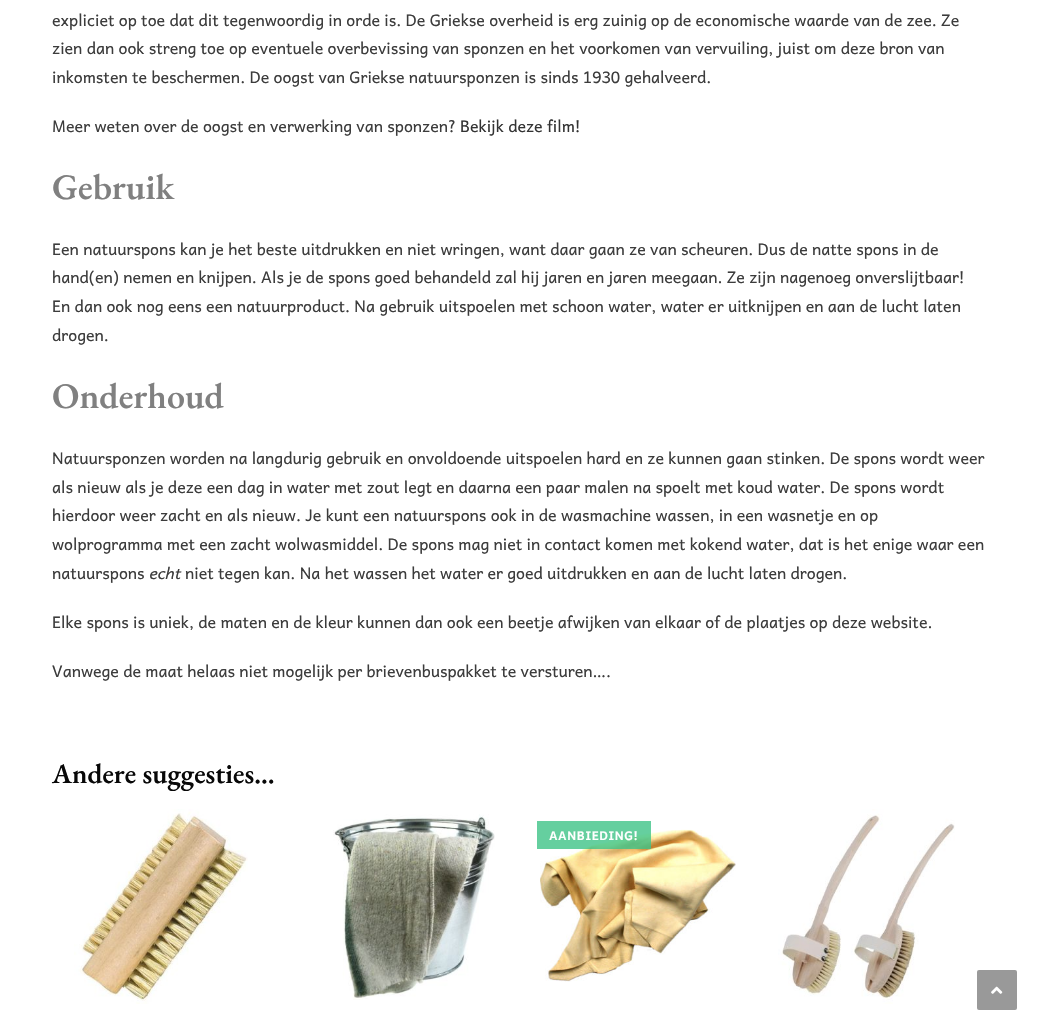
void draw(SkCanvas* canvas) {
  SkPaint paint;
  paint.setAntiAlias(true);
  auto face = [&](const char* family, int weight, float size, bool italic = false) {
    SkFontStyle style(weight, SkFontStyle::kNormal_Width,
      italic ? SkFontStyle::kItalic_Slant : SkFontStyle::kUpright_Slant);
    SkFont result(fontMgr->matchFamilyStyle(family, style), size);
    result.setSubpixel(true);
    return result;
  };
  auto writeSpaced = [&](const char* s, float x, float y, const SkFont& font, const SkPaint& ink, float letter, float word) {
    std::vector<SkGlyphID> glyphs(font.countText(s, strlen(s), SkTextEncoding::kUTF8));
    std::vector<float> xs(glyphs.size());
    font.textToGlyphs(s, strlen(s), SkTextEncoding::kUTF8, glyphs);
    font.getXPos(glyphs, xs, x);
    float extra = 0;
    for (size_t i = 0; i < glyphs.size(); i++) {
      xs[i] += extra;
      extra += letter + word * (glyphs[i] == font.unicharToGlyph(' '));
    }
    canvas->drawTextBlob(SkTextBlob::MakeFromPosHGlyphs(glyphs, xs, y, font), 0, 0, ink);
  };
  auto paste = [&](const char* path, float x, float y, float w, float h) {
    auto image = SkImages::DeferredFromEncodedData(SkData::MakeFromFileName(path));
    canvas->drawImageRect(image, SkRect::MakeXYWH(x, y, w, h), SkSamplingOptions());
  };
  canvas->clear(0xffffffff);
  paste("img/1.png", 74, 809, 174, 195);
  paste("img/2.png", 333, 814, 162, 186);
  paste("img/3.png", 540, 829, 196, 153);
  paint.setColor(0xcc3fc387);
  canvas->drawRect(SkRect::MakeXYWH(537, 821, 114, 28), paint);
  paste("img/4.png", 778, 809, 177, 195);
  paint.setColor(0xff999999);
  canvas->drawRoundRect(SkRect::MakeXYWH(977, 970, 40, 40), 2, 2, paint);
  paste("img/5.png", 991, 986, 12, 8);
  auto f0 = face("Andika", 400, 16);
  paint.setColor(0xff3c3c3c);
  {
    const struct { const char* s; float x, y; } items[] = {
      {"expliciet op toe dat dit tegenwoordig in orde is. De Griekse overheid is erg zuinig op de economische waarde van de zee. Ze", 52, 26},
      {"zien dan ook streng toe op eventuele overbevissing van sponzen en het voorkomen van vervuiling, juist om deze bron van", 52, 54},
      {"inkomsten te beschermen. De oogst van Griekse natuursponzen is sinds 1930 gehalveerd.", 52, 83},
      {"Meer weten over de oogst en verwerking van sponzen?", 52, 132},
    };
    for (auto [s, x, y] : items) {
      canvas->drawString(s, x, y, f0, paint);
    }
  }
  paint.setColor(0xff333333);
  canvas->drawString("Bekijk deze film!", 460, 132, f0, paint);
  auto f1 = face("EB Garamond", 600, 36);
  paint.setColor(0xff808080);
  canvas->drawString("Gebruik", 52, 199, f1, paint);
  paint.setColor(0xff3c3c3c);
  {
    const struct { const char* s; float x, y; } items[] = {
      {"Een natuurspons kan je het beste uitdrukken en niet wringen, want daar gaan ze van scheuren. Dus de natte spons in de", 52, 255},
      {"hand(en) nemen en knijpen. Als je de spons goed behandeld zal hij jaren en jaren meegaan. Ze zijn nagenoeg onverslijtbaar!", 52, 283},
      {"En dan ook nog eens een natuurproduct. Na gebruik uitspoelen met schoon water, water er uitknijpen en aan de lucht laten", 52, 312},
      {"drogen.", 52, 341},
    };
    for (auto [s, x, y] : items) {
      canvas->drawString(s, x, y, f0, paint);
    }
  }
  paint.setColor(0xff808080);
  canvas->drawString("Onderhoud", 52, 408, f1, paint);
  paint.setColor(0xff3c3c3c);
  {
    const struct { const char* s; float x, y; } items[] = {
      {"Natuursponzen worden na langdurig gebruik en onvoldoende uitspoelen hard en ze kunnen gaan stinken. De spons wordt weer", 52, 464},
      {"als nieuw als je deze een dag in water met zout legt en daarna een paar malen na spoelt met koud water. De spons wordt", 52, 493},
      {"hierdoor weer zacht en als nieuw. Je kunt een natuurspons ook in de wasmachine wassen, in een wasnetje en op", 52, 521},
      {"wolprogramma met een zacht wolwasmiddel. De spons mag niet in contact komen met kokend water, dat is het enige waar een", 52, 550},
      {"natuurspons", 52, 579},
    };
    for (auto [s, x, y] : items) {
      canvas->drawString(s, x, y, f0, paint);
    }
  }
  auto f2 = face("Andika", 400, 16, true);
  canvas->drawString("echt", 149, 579, f2, paint);
  {
    const struct { const char* s; float x, y; } items[] = {
      {"niet tegen kan. Na het wassen het water er goed uitdrukken en aan de lucht laten drogen.", 185, 579},
      {"Elke spons is uniek, de maten en de kleur kunnen dan ook een beetje afwijken van elkaar of de plaatjes op deze website.", 52, 628},
      {"Vanwege de maat helaas niet mogelijk per brievenbuspakket te versturen….", 52, 677},
    };
    for (auto [s, x, y] : items) {
      canvas->drawString(s, x, y, f0, paint);
    }
  }
  auto f3 = face("EB Garamond", 600, 28);
  paint.setColor(0xff080808);
  canvas->drawString("Andere suggesties…", 52, 783, f3, paint);
  auto f4 = face("Andika", 700, 12);
  paint.setColor(0xffffffff);
  writeSpaced("AANBIEDING!", 549, 840, f4, paint, 0.4f, 0);
}
